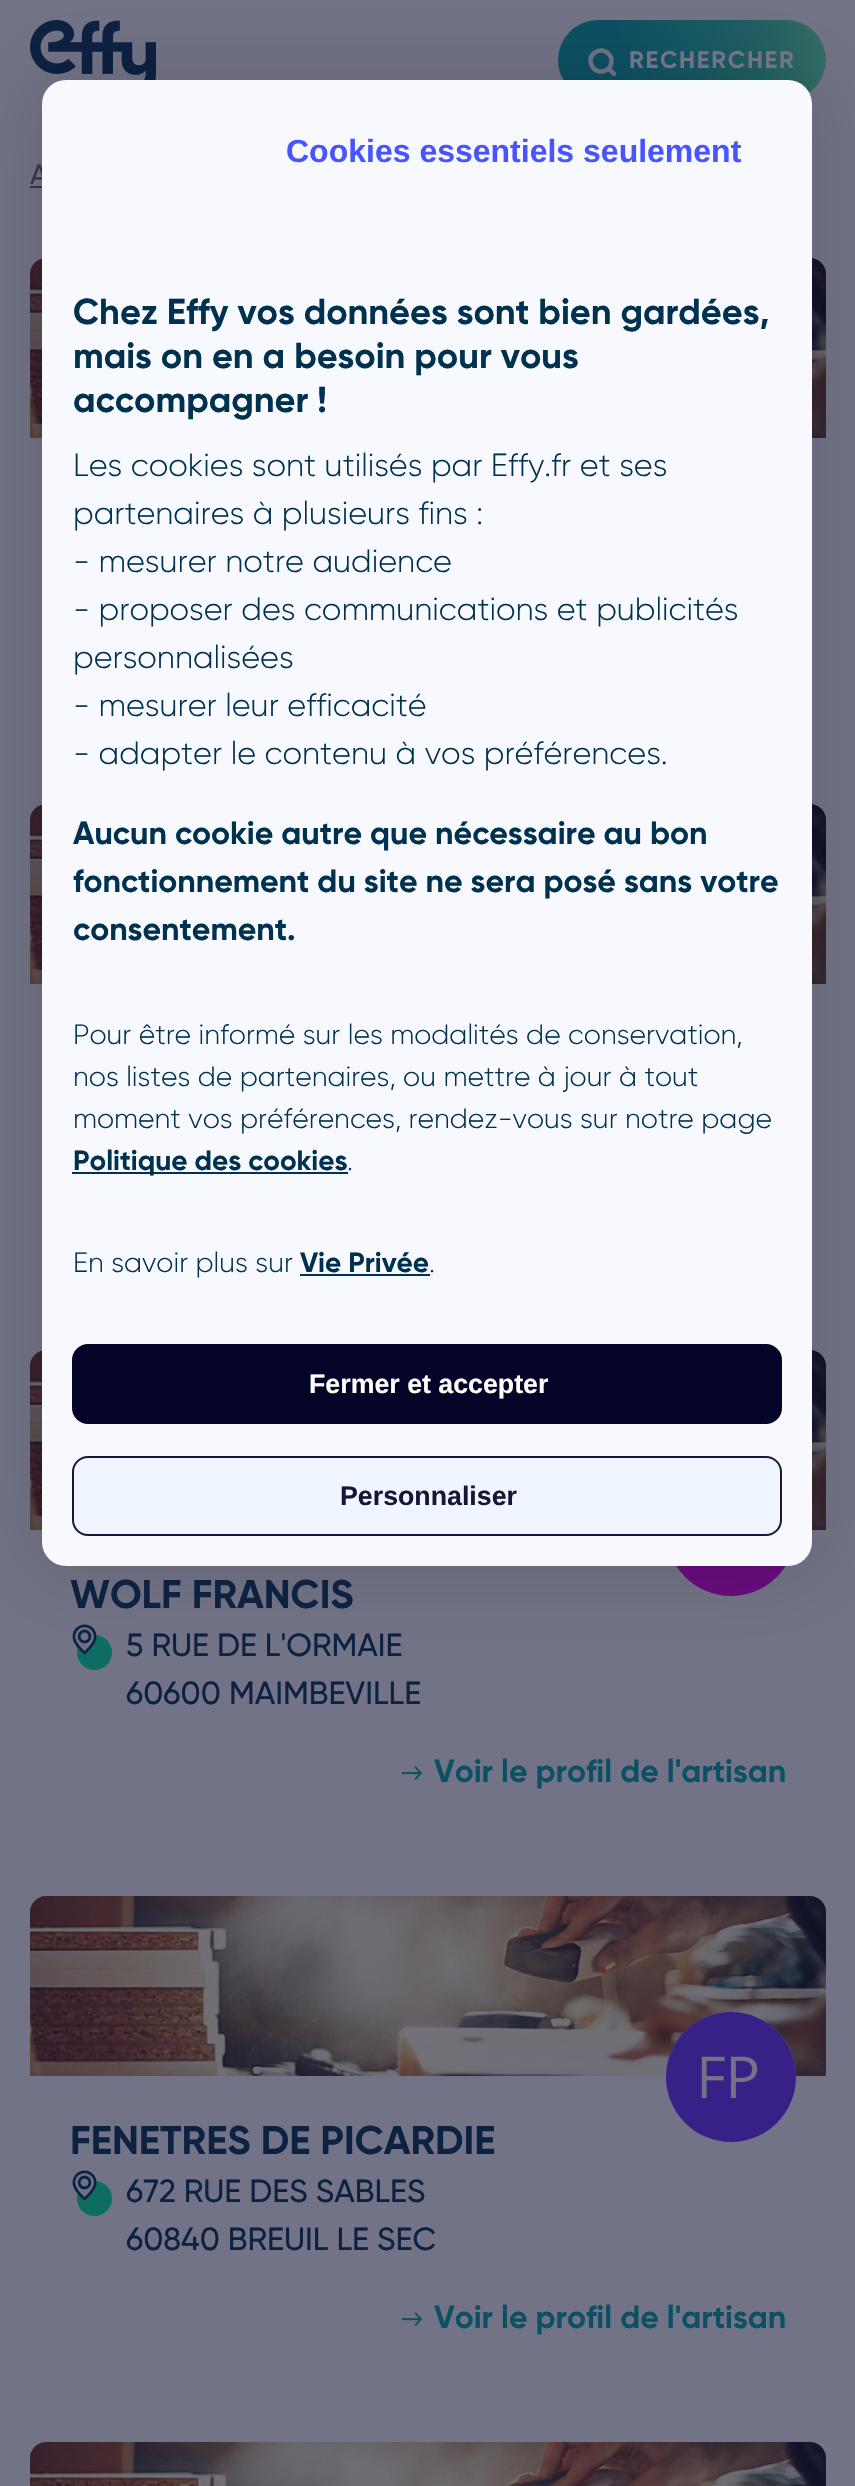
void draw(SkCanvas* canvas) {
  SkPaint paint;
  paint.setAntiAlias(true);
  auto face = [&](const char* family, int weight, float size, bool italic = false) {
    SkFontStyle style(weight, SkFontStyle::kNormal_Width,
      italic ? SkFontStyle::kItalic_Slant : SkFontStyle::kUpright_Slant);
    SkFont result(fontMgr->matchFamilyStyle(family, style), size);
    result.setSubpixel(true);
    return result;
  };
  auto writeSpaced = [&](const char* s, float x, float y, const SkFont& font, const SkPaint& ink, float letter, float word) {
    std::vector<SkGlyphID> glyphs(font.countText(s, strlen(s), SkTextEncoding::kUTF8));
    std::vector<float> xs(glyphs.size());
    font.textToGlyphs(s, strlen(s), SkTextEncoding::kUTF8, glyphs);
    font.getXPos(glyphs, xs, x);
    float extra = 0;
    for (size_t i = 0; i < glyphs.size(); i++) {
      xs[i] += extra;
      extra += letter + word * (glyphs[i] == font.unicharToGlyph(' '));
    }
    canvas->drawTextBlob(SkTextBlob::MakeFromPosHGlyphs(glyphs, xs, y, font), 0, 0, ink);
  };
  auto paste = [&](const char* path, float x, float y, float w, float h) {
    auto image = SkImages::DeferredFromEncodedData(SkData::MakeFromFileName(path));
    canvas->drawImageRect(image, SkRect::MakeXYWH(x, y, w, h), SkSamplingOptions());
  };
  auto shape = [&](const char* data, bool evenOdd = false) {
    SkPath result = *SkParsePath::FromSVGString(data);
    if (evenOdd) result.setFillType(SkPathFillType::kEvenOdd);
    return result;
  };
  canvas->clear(0xff737387);
  paste("img/1.png", 30, 20, 126, 60);
  {
    const SkColor colors[] = {0xff0d5063, 0xff215f63, 0xff3c7364};
    const float stops[] = {0.21f, 0.68f, 1};
    const SkPoint ends[] = {{556, 72}, {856, 46}};
    paint.setShader(SkGradientShader::MakeLinear(ends, colors, stops, 3, SkTileMode::kClamp));
    paint.setAlpha(255);
  }
  canvas->drawRoundRect(SkRect::MakeXYWH(558, 20, 268, 80), 40, 40, paint);
  paint.setStroke(true);
  paint.setStrokeWidth(4.5f);
  paint.setStrokeCap(SkPaint::kRound_Cap);
  paint.setStrokeJoin(SkPaint::kRound_Join);
  paint.setShader(nullptr);
  paint.setColor(0xff737387);
  canvas->drawPath(shape("M611.5 61C611.5 64.5 609.5 68 606.5 70C595.5 76.5 584.5 61.5 594 53C596 51.5 598.5 50.5 601 50.5C606.5 50.5 611.5 55 611.5 61ZM614 74L608.5 68.5"), paint);
  paint.setStroke(false);
  paint.setColor(0xff343447);
  canvas->drawRect(SkRect::MakeXYWH(30, 186, 12, 2), paint);
  paste("img/2.png", 30, 258, 796, 180);
  paste("img/3.png", 30, 804, 796, 180);
  paste("img/4.png", 30, 1350, 796, 180);
  paint.setColor(0xff737387);
  canvas->drawCircle(731, 1531, 65, paint);
  paste("img/5.png", 676, 1566, 110, 30);
  paste("img/6.png", 72, 1624, 40, 46);
  paint.setColor(0x29000000);
  paint.setMaskFilter(SkMaskFilter::MakeBlur(kNormal_SkBlurStyle, 40));
  canvas->drawRoundRect(SkRect::MakeXYWH(42, 80, 770, 1486), 24, 24, paint);
  paint.setMaskFilter(nullptr);
  paste("img/7.png", 402, 1766, 20, 14);
  paste("img/8.png", 30, 1896, 796, 180);
  paint.setColor(0xff737387);
  canvas->drawCircle(731, 2077, 65, paint);
  paste("img/9.png", 666, 2012, 130, 130);
  paste("img/6.png", 72, 2170, 40, 46);
  paste("img/7.png", 402, 2312, 20, 14);
  paste("img/10.png", 30, 2442, 796, 44);
  auto f0 = face("Gilroy", 700, 24);
  writeSpaced("RECHERCHER", 629, 68, f0, paint, 1.75f, 0);
  auto f1 = face("Gilroy", 500, 28);
  paint.setColor(0xff343447);
  canvas->drawString("A", 30, 184, f1, paint);
  paint.setColor(0xfff7f9ff);
  canvas->drawRoundRect(SkRect::MakeXYWH(42, 80, 770, 1486), 24, 24, paint);
  paint.setColor(0xfff0f6ff);
  canvas->drawRoundRect(SkRect::MakeXYWH(73, 1457, 708, 78), 15, 15, paint);
  paint.setStroke(true);
  paint.setStrokeWidth(2);
  paint.setStrokeCap(SkPaint::kButt_Cap);
  paint.setStrokeJoin(SkPaint::kMiter_Join);
  paint.setColor(0xff161637);
  canvas->drawRoundRect(SkRect::MakeXYWH(73, 1457, 708, 78), 15, 15, paint);
  auto f2 = face("Liberation Sans", 700, 26.75f);
  paint.setStroke(false);
  canvas->drawString("Personnaliser", 340, 1505, f2, paint);
  paint.setColor(0xff040429);
  canvas->drawRoundRect(SkRect::MakeXYWH(73, 1345, 708, 78), 15, 15, paint);
  paint.setStroke(true);
  canvas->drawRoundRect(SkRect::MakeXYWH(73, 1345, 708, 78), 15, 15, paint);
  paint.setStroke(false);
  paint.setColor(0xffffffff);
  canvas->drawString("Fermer et accepter", 309, 1393, f2, paint);
  auto f3 = face("Gilroy", 300, 28);
  paint.setColor(0xff003250);
  canvas->drawString(".", 429, 1272, f3, paint);
  auto f4 = face("Gilroy", 700, 28);
  canvas->drawString("Vie Privée", 300, 1272, f4, paint);
  canvas->drawRect(SkRect::MakeXYWH(300, 1274, 130, 2), paint);
  canvas->drawString("En savoir plus sur", 73, 1272, f3, paint);
  canvas->drawString(".", 347, 1170, f3, paint);
  canvas->drawRect(SkRect::MakeXYWH(72, 1172, 276, 2), paint);
  canvas->drawString("Politique des cookies", 73, 1170, f4, paint);
  {
    const struct { const char* s; float x, y; } items[] = {
      {"moment vos préférences, rendez-vous sur notre page", 73, 1128},
      {"nos listes de partenaires, ou mettre à jour à tout", 73, 1086},
      {"Pour être informé sur les modalités de conservation,", 73, 1044},
    };
    for (auto [s, x, y] : items) {
      canvas->drawString(s, x, y, f3, paint);
    }
  }
  auto f5 = face("Gilroy", 700, 32);
  {
    const struct { const char* s; float x, y; } items[] = {
      {"consentement.", 73, 940},
      {"fonctionnement du site ne sera posé sans votre", 73, 892},
      {"Aucun cookie autre que nécessaire au bon", 73, 844},
    };
    for (auto [s, x, y] : items) {
      canvas->drawString(s, x, y, f5, paint);
    }
  }
  auto f6 = face("Gilroy", 300, 32);
  {
    const struct { const char* s; float x, y; } items[] = {
      {"- adapter le contenu à vos préférences.", 73, 764},
      {"- mesurer leur efficacité", 73, 716},
      {"personnalisées", 73, 668},
      {"- proposer des communications et publicités", 73, 620},
      {"- mesurer notre audience", 73, 572},
      {"partenaires à plusieurs fins :", 73, 524},
      {"Les cookies sont utilisés par Effy.fr et ses", 73, 476},
    };
    for (auto [s, x, y] : items) {
      canvas->drawString(s, x, y, f6, paint);
    }
  }
  auto f7 = face("Gilroy", 700, 36);
  {
    const struct { const char* s; float x, y; } items[] = {
      {"accompagner !", 73, 412},
      {"mais on en a besoin pour vous", 73, 368},
      {"Chez Effy vos données sont bien gardées,", 73, 324},
    };
    for (auto [s, x, y] : items) {
      canvas->drawString(s, x, y, f7, paint);
    }
  }
  auto f8 = face("Liberation Sans", 700, 32);
  paint.setColor(0xff4754ff);
  canvas->drawString("Cookies essentiels seulement", 286, 162, f8, paint);
  auto f9 = face("Gilroy", 700, 40);
  paint.setColor(0xff0d2141);
  canvas->drawString("WOLF FRANCIS", 70, 1608, f9, paint);
  auto f10 = face("Gilroy", 500, 32);
  canvas->drawString("5 RUE DE L'ORMAIE", 126, 1656, f10, paint);
  canvas->drawString("60600 MAIMBEVILLE", 126, 1704, f10, paint);
  paint.setColor(0xff0d5063);
  canvas->drawString("Voir le profil de l'artisan", 434, 1782, f5, paint);
  paint.setColor(0xff0d2141);
  canvas->drawString("FENETRES DE PICARDIE", 70, 2154, f9, paint);
  canvas->drawString("672 RUE DES SABLES", 126, 2202, f10, paint);
  canvas->drawString("60840 BREUIL LE SEC", 126, 2250, f10, paint);
  paint.setColor(0xff0d5063);
  canvas->drawString("Voir le profil de l'artisan", 434, 2328, f5, paint);
}
